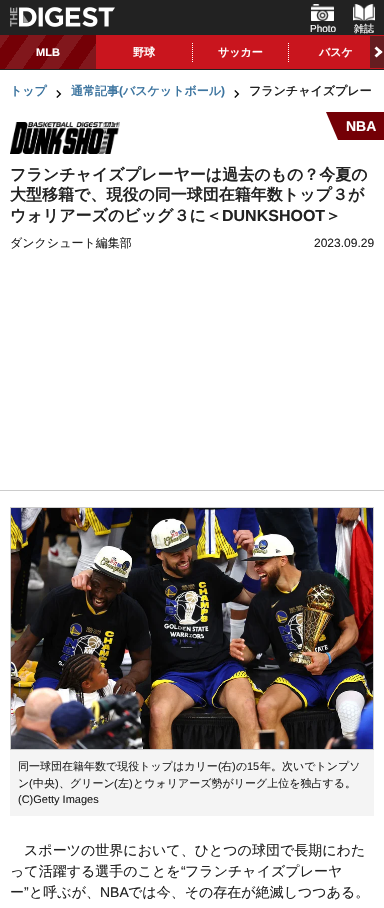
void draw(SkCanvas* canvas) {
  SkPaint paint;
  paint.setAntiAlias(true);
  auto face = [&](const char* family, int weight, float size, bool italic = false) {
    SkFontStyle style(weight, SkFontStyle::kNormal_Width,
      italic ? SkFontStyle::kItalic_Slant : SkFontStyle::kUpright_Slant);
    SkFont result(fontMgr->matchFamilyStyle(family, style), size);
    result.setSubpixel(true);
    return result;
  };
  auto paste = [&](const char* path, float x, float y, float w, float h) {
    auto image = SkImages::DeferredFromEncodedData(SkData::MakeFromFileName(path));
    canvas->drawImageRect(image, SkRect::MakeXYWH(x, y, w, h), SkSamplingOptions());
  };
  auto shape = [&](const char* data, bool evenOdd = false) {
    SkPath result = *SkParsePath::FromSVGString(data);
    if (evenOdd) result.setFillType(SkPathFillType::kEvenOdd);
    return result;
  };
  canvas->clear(0xffffffff);
  paint.setColor(0xff222222);
  canvas->drawRect(SkRect::MakeXYWH(0, 0, 384, 35), paint);
  paste("img/1.png", 10, 7, 105, 20);
  paste("img/2.png", 311, 4, 23, 17);
  paste("img/3.png", 353, 4, 22, 17);
  paint.setColor(0xffc9151e);
  canvas->drawRect(SkRect::MakeXYWH(96, 35, 288, 34), paint);
  paint.setColor(0xff222222);
  canvas->drawRect(SkRect::MakeXYWH(0, 69, 384, 1), paint);
  {
    const SkColor colors[] = {0xff81171c, 0xff81171c, 0xff740006, 0xff740006, 0xff81171c, 0xff81171c, 0xff740006, 0xff740006, 0xff81171c, 0xff81171c, 0xff740006, 0xff740006, 0xff81171c, 0xff81171c, 0xff740006, 0xff740006};
    const float stops[] = {0, 0.12f, 0.12f, 0.25f, 0.25f, 0.38f, 0.38f, 0.5f, 0.5f, 0.62f, 0.62f, 0.75f, 0.75f, 0.88f, 0.88f, 1};
    const SkPoint ends[] = {{88, 80}, {-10, 11}};
    paint.setShader(SkGradientShader::MakeLinear(ends, colors, stops, 16, SkTileMode::kClamp));
    paint.setAlpha(255);
  }
  canvas->drawRect(SkRect::MakeXYWH(0, 35, 96, 34), paint);
  paint.setStroke(true);
  paint.setStrokeWidth(1);
  paint.setShader(nullptr);
  paint.setColor(0xffffffff);
  paint.setPathEffect(SkDashPathEffect::Make({{1, 1}}, 0));
  canvas->drawPath(shape("M192.5 43V62"), paint);
  paint.setPathEffect(nullptr);
  paint.setPathEffect(SkDashPathEffect::Make({{1, 1}}, 0));
  canvas->drawPath(shape("M288.5 43V62"), paint);
  paint.setPathEffect(nullptr);
  paint.setStroke(false);
  paint.setColor(0xff651d20);
  canvas->drawRect(SkRect::MakeXYWH(370, 36, 14, 32), paint);
  paint.setColor(0xffffffff);
  canvas->drawPath(shape("M374.5 48.5L376.5 46.5L382.5 52L380.5 54Z"), paint);
  canvas->drawPath(shape("M374.5 55.5L380.5 50L382.5 52L376.5 57.5Z"), paint);
  paste("img/4.png", 56, 90, 6, 8);
  paste("img/4.png", 234, 90, 6, 8);
  paint.setColor(0xffcccccc);
  canvas->drawRect(SkRect::MakeXYWH(0, 490, 384, 1), paint);
  paste("img/5.png", 10, 122, 110, 32);
  paint.setColor(0xff740006);
  canvas->drawRect(SkRect::MakeXYWH(338, 112, 46, 28), paint);
  canvas->drawPath(shape("M338 112V140L326 112Z"), paint);
  paint.setStroke(true);
  paint.setColor(0xffcccccc);
  canvas->drawRect(SkRect::MakeXYWH(10.5f, 507.5f, 363, 242), paint);
  paste("img/6.png", 11, 508, 362, 241);
  paint.setStroke(false);
  paint.setColor(0xfff4f4f4);
  canvas->drawRect(SkRect::MakeXYWH(10, 750, 364, 66), paint);
  auto f0 = face("Liberation Sans", 400, 10);
  paint.setColor(0xffffffff);
  canvas->drawString("Photo", 310, 32, f0, paint);
  auto f1 = face("WenQuanYi Zen Hei", 500, 10);
  canvas->drawString("雑誌", 354, 32, f1, paint);
  auto f2 = face("Liberation Sans", 700, 11);
  canvas->drawString("MLB", 36, 56, f2, paint);
  auto f3 = face("WenQuanYi Zen Hei", 700, 11);
  {
    const struct { const char* s; float x, y; } items[] = {
      {"野球", 133, 56},
      {"サッカー", 218, 56},
      {"バスケ", 319, 56},
    };
    for (auto [s, x, y] : items) {
      canvas->drawString(s, x, y, f3, paint);
    }
  }
  auto f4 = face("WenQuanYi Zen Hei", 700, 12);
  paint.setColor(0xff3d75a0);
  canvas->drawString("トップ", 10, 95, f4, paint);
  canvas->drawString("通常記事", 71, 95, f4, paint);
  auto f5 = face("Liberation Sans", 700, 12);
  canvas->drawString("(", 119, 95, f5, paint);
  canvas->drawString("バスケットボール", 123, 95, f4, paint);
  canvas->drawString(")", 221, 95, f5, paint);
  paint.setColor(0xff222222);
  canvas->drawString("フランチャイズプレー", 249, 95, f4, paint);
  auto f6 = face("Liberation Sans", 700, 14);
  paint.setColor(0xffffffff);
  canvas->drawString("NBA", 346, 131, f6, paint);
  auto f7 = face("WenQuanYi Zen Hei", 700, 16);
  paint.setColor(0xff222222);
  {
    const struct { const char* s; float x, y; } items[] = {
      {"フランチャイズプレーヤーは過去のもの？今夏の", 10, 180},
      {"大型移籍で、現役の同一球団在籍年数トップ３が", 10, 200},
      {"ウォリアーズのビッグ３に＜", 10, 221},
    };
    for (auto [s, x, y] : items) {
      canvas->drawString(s, x, y, f7, paint);
    }
  }
  auto f8 = face("Liberation Sans", 700, 16);
  canvas->drawString("DUNKSHOOT", 222, 221, f8, paint);
  canvas->drawString("＞", 325, 221, f7, paint);
  auto f9 = face("WenQuanYi Zen Hei", 500, 12);
  canvas->drawString("ダンクシュート編集部", 10, 247, f9, paint);
  auto f10 = face("Liberation Sans", 400, 12);
  canvas->drawString("2023.09.29", 314, 247, f10, paint);
  auto f11 = face("WenQuanYi Zen Hei", 500, 11);
  canvas->drawString("同一球団在籍年数で現役トップはカリー", 18, 770, f11, paint);
  auto f12 = face("Liberation Sans", 400, 11);
  canvas->drawString("(", 218, 770, f12, paint);
  canvas->drawString("右", 221, 770, f11, paint);
  canvas->drawString(")", 232, 770, f12, paint);
  canvas->drawString("の", 236, 770, f11, paint);
  canvas->drawString("15", 247, 770, f12, paint);
  canvas->drawString("年。次いでトンプソ", 260, 770, f11, paint);
  canvas->drawString("ン", 18, 787, f11, paint);
  canvas->drawString("(", 29, 787, f12, paint);
  canvas->drawString("中央", 33, 787, f11, paint);
  canvas->drawString(")", 55, 787, f12, paint);
  canvas->drawString("、グリーン", 59, 787, f11, paint);
  canvas->drawString("(", 114, 787, f12, paint);
  canvas->drawString("左", 118, 787, f11, paint);
  canvas->drawString(")", 129, 787, f12, paint);
  canvas->drawString("とウォリアーズ勢がリーグ上位を独占する。", 133, 787, f11, paint);
  canvas->drawString("(C)Getty Images", 18, 803, f12, paint);
  auto f13 = face("WenQuanYi Zen Hei", 500, 14);
  canvas->drawString("スポーツの世界において、ひとつの球団で長期にわた", 24, 855, f13, paint);
  canvas->drawString("って活躍する選手のことを", 10, 876, f13, paint);
  auto f14 = face("Liberation Sans", 400, 14);
  canvas->drawString("“", 181, 876, f14, paint);
  canvas->drawString("フランチャイズプレーヤ", 185, 876, f13, paint);
  canvas->drawString("ー", 10, 897, f13, paint);
  canvas->drawString("”", 24, 897, f14, paint);
  canvas->drawString("と呼ぶが、", 29, 897, f13, paint);
  canvas->drawString("NBA", 100, 897, f14, paint);
  canvas->drawString("では今、その存在が絶滅しつつある。", 128, 897, f13, paint);
}
